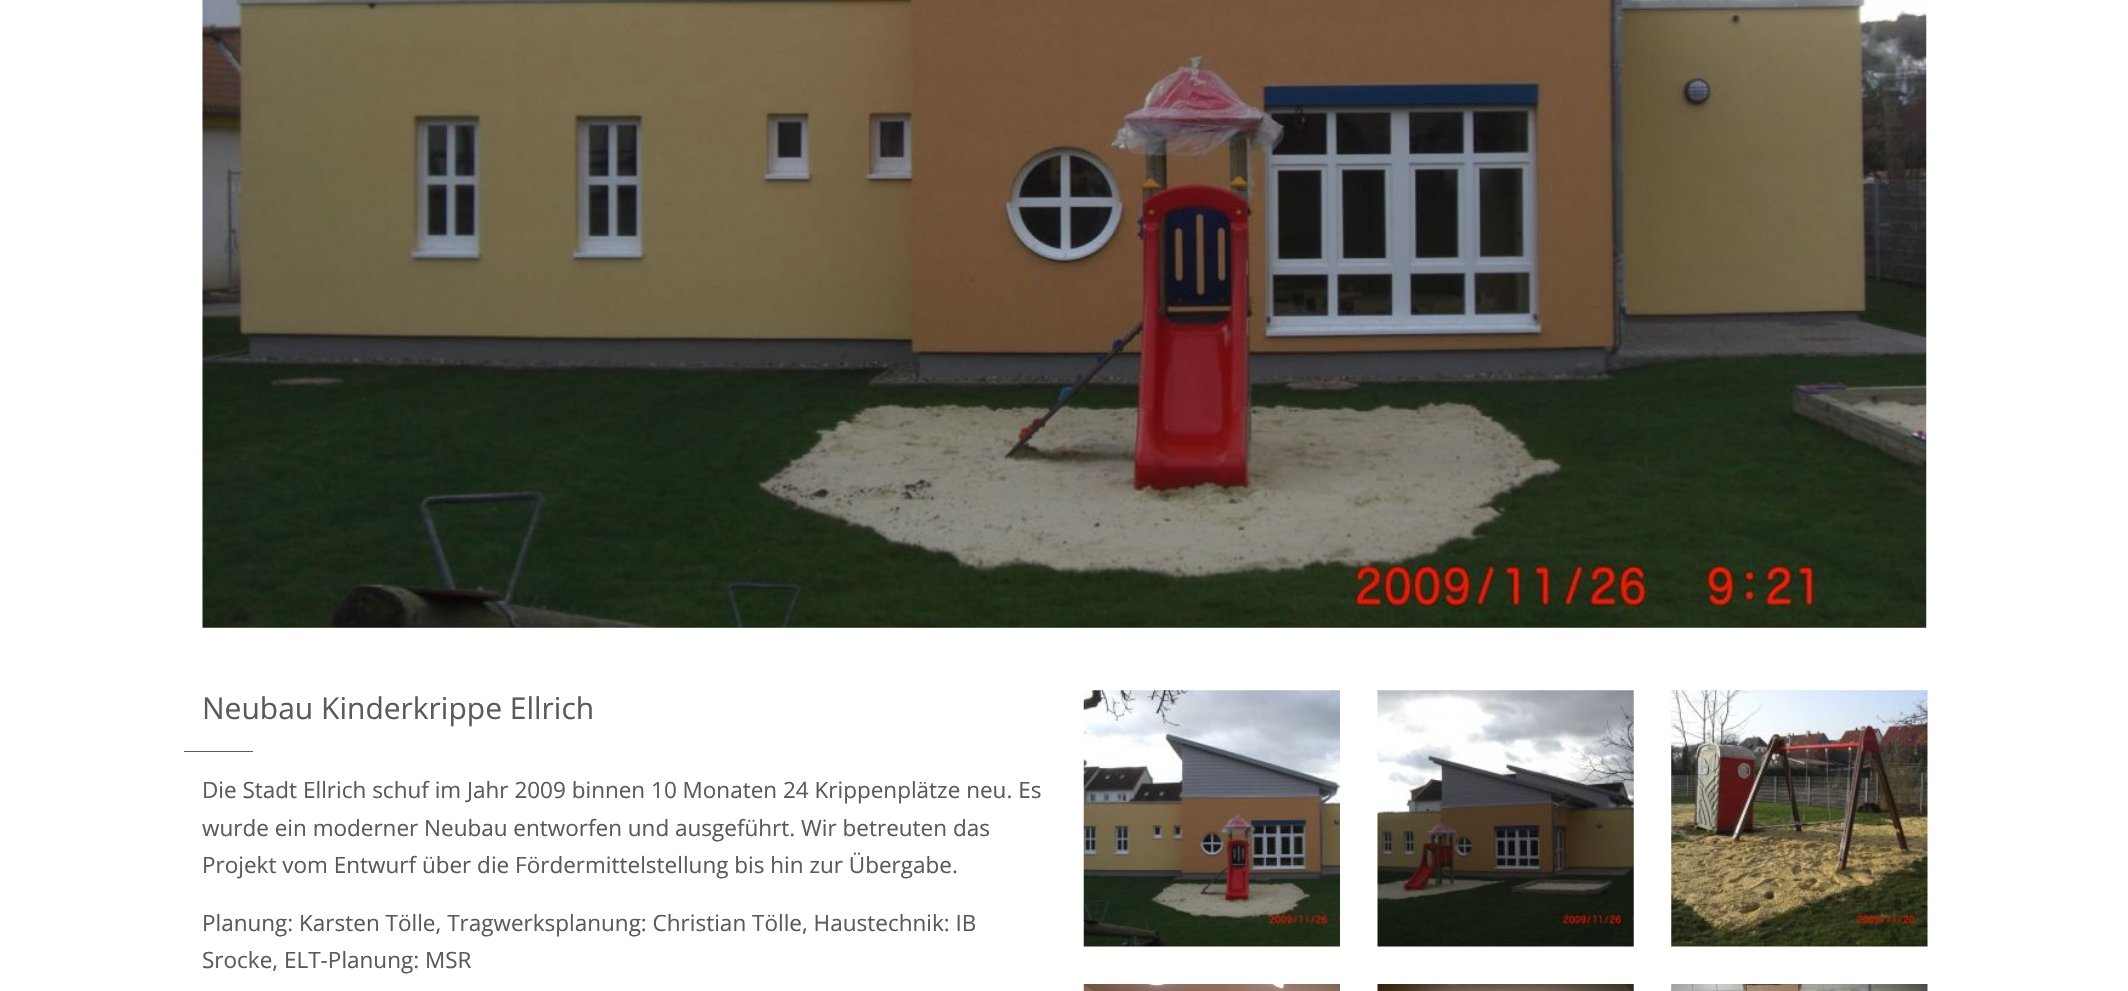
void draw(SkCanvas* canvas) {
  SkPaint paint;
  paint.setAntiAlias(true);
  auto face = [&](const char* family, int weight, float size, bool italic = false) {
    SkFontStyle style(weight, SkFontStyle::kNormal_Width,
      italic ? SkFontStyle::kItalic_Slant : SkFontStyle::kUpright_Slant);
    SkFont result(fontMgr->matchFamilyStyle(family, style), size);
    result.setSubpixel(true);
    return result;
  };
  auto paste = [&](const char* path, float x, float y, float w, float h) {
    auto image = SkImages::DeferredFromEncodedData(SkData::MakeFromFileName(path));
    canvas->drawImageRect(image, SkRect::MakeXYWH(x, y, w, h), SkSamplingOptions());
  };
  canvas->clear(0xffffffff);
  paste("img/1.png", 202, 0, 1725, 628);
  paint.setColor(0xff5b5b5b);
  canvas->drawRect(SkRect::MakeXYWH(184, 751, 69, 1), paint);
  paste("img/2.png", 1083, 690, 257, 257);
  paste("img/3.png", 1377, 690, 257, 257);
  paste("img/4.png", 1671, 690, 257, 257);
  paste("img/5.png", 1083, 984, 257, 7);
  paste("img/6.png", 1377, 984, 257, 7);
  paste("img/7.png", 1671, 984, 257, 7);
  auto f0 = face("Open Sans", 400, 30);
  paint.setColor(0xff5a5a5a);
  canvas->drawString("Neubau Kinderkrippe Ellrich", 202, 719, f0, paint);
  auto f1 = face("Open Sans", 400, 22.5f);
  {
    const struct { const char* s; float x, y; } items[] = {
      {"Die Stadt Ellrich schuf im Jahr 2009 binnen 10 Monaten 24 Krippenplätze neu. Es", 202, 798},
      {"wurde ein moderner Neubau entworfen und ausgeführt. Wir betreuten das", 202, 836},
      {"Projekt vom Entwurf über die Fördermittelstellung bis hin zur Übergabe.", 202, 873},
      {"Planung: Karsten Tölle, Tragwerksplanung: Christian Tölle, Haustechnik: IB", 202, 931},
      {"Srocke, ELT-Planung: MSR", 202, 968},
    };
    for (auto [s, x, y] : items) {
      canvas->drawString(s, x, y, f1, paint);
    }
  }
}
